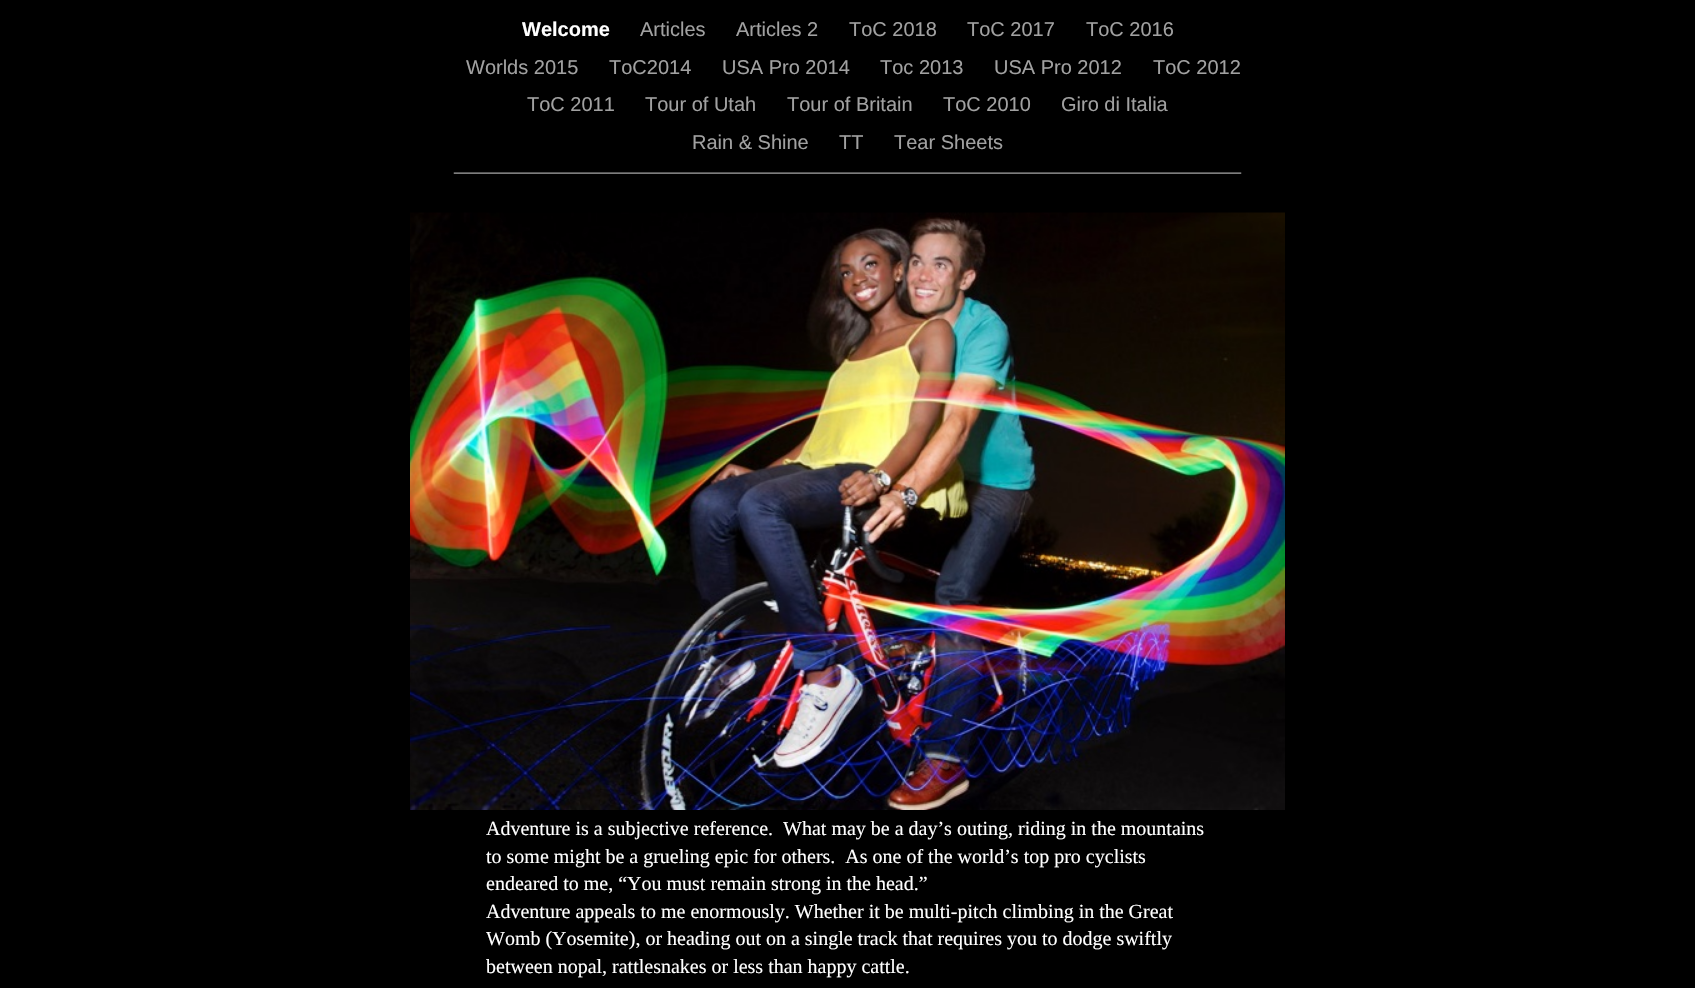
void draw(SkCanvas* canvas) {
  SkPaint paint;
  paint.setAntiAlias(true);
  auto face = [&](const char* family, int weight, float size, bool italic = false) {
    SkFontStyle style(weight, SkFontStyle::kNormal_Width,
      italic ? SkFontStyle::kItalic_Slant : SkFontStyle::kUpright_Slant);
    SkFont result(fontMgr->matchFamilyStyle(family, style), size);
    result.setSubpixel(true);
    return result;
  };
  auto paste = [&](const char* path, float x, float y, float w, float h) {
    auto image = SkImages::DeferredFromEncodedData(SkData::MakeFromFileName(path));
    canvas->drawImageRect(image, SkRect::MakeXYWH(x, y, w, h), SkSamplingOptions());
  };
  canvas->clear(0xff000000);
  paste("img/1.png", 453, 172, 789, 2);
  paste("img/2.png", 410, 212, 875, 598);
  auto f0 = face("Liberation Sans", 700, 20);
  paint.setColor(0xffffffff);
  canvas->drawString("Welcome", 522, 36, f0, paint);
  auto f1 = face("Liberation Sans", 400, 20);
  paint.setColor(0xffa1a1a1);
  {
    const struct { const char* s; float x, y; } items[] = {
      {"Articles", 640, 36},
      {"Articles 2", 736, 36},
      {"ToC 2018", 849, 36},
      {"ToC 2017", 967, 36},
      {"ToC 2016", 1086, 36},
      {"Worlds 2015", 466, 74},
      {"ToC2014", 609, 74},
      {"USA Pro 2014", 722, 74},
      {"Toc 2013", 880, 74},
      {"USA Pro 2012", 994, 74},
      {"ToC 2012", 1153, 74},
      {"ToC 2011", 527, 111},
      {"Tour of Utah", 645, 111},
      {"Tour of Britain", 787, 111},
      {"ToC 2010", 943, 111},
      {"Giro di Italia", 1061, 111},
      {"Rain & Shine", 692, 149},
      {"TT", 839, 149},
      {"Tear Sheets", 894, 149},
    };
    for (auto [s, x, y] : items) {
      canvas->drawString(s, x, y, f1, paint);
    }
  }
  auto f2 = face("Liberation Serif", 400, 20);
  paint.setColor(0xffffffff);
  {
    const struct { const char* s; float x, y; } items[] = {
      {"Adventure is a subjective reference.  What may be a day’s outing, riding in the mountains", 486, 835},
      {"to some might be a grueling epic for others.  As one of the world’s top pro cyclists", 486, 863},
      {"endeared to me, “You must remain strong in the head.”", 486, 890},
      {"Adventure appeals to me enormously. Whether it be multi-pitch climbing in the Great", 486, 918},
      {"Womb (Yosemite), or heading out on a single track that requires you to dodge swiftly", 486, 945},
      {"between nopal, rattlesnakes or less than happy cattle.", 486, 973},
    };
    for (auto [s, x, y] : items) {
      canvas->drawString(s, x, y, f2, paint);
    }
  }
}
